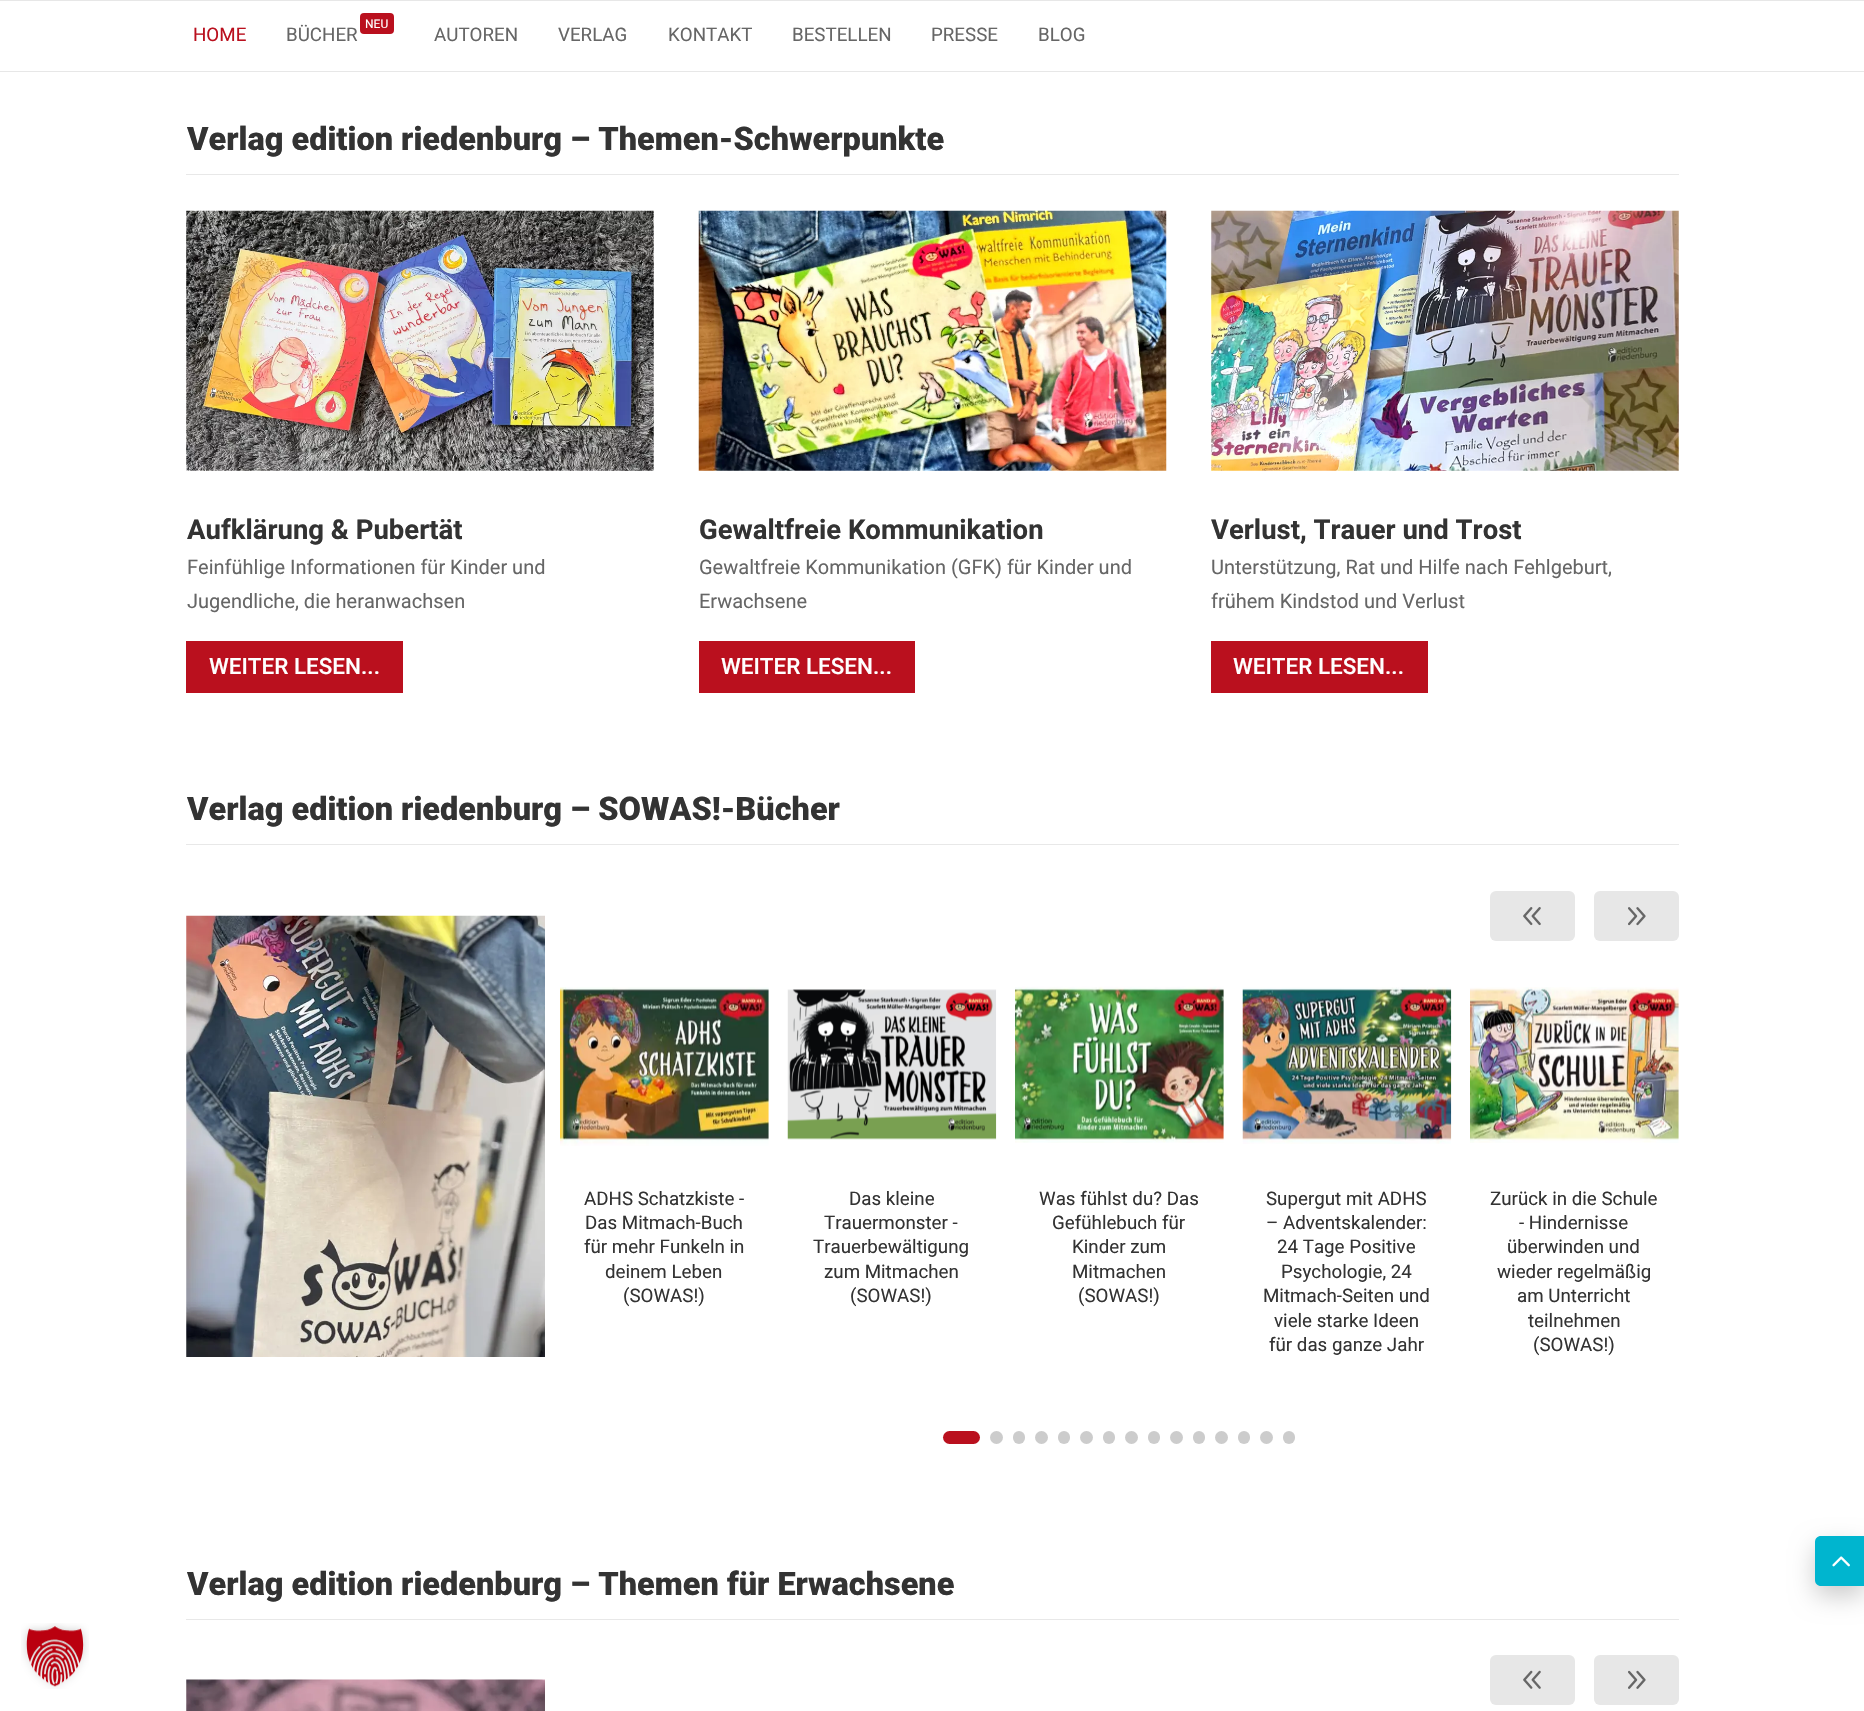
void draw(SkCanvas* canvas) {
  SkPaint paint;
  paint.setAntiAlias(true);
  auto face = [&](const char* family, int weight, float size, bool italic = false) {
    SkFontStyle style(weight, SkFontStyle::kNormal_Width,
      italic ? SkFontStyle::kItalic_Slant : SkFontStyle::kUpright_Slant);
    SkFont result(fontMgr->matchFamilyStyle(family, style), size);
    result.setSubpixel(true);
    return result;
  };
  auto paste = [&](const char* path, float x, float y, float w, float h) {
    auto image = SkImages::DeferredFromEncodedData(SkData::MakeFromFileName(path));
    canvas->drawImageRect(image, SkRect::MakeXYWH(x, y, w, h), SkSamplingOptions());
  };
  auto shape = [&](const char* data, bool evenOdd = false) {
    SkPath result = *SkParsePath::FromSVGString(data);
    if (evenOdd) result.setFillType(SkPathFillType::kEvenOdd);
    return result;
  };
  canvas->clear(0xffffffff);
  paint.setColor(0xffe7e7e7);
  canvas->drawRect(SkRect::MakeXYWH(0, 0, 1864, 1), paint);
  canvas->drawRect(SkRect::MakeXYWH(0, 71, 1864, 1), paint);
  paint.setColor(0xffba101e);
  canvas->drawRoundRect(SkRect::MakeXYWH(360, 13, 34, 21), 4, 4, paint);
  paint.setColor(0xffe8e8e8);
  canvas->drawRect(SkRect::MakeXYWH(186, 174, 1493, 1), paint);
  paste("img/1.png", 186, 210, 468, 261);
  paint.setColor(0xffba101e);
  canvas->drawRect(SkRect::MakeXYWH(186, 641, 217, 52), paint);
  paste("img/2.png", 698, 210, 469, 261);
  canvas->drawRect(SkRect::MakeXYWH(699, 641, 216, 52), paint);
  paste("img/3.png", 1211, 210, 468, 261);
  canvas->drawRect(SkRect::MakeXYWH(1211, 641, 217, 52), paint);
  paint.setColor(0xffe8e8e8);
  canvas->drawRect(SkRect::MakeXYWH(186, 844, 1493, 1), paint);
  paste("img/4.png", 186, 915, 359, 442);
  paint.setColor(0xffe7e7e7);
  canvas->drawRoundRect(SkRect::MakeXYWH(1490, 891, 85, 50), 6, 6, paint);
  paste("img/5.png", 1523, 907, 18, 19);
  canvas->drawRoundRect(SkRect::MakeXYWH(1594, 891, 85, 50), 6, 6, paint);
  paste("img/6.png", 1628, 907, 18, 19);
  paste("img/7.png", 560, 987, 209, 159);
  paste("img/8.png", 787, 989, 210, 151);
  paste("img/9.png", 1015, 986, 209, 157);
  paste("img/10.png", 1242, 987, 210, 157);
  paste("img/11.png", 1470, 987, 209, 156);
  paint.setColor(0xffba101e);
  canvas->drawRoundRect(SkRect::MakeXYWH(943, 1431, 37, 13), 6.5f, 6.5f, paint);
  paint.setColor(0xffcccccc);
  canvas->drawCircle(996.5f, 1437.5f, 6.5f, paint);
  canvas->drawRoundRect(SkRect::MakeXYWH(1013, 1431, 12, 13), 6, 6, paint);
  canvas->drawCircle(1041.5f, 1437.5f, 6.5f, paint);
  canvas->drawRoundRect(SkRect::MakeXYWH(1058, 1431, 12, 13), 6, 6, paint);
  canvas->drawCircle(1086.5f, 1437.5f, 6.5f, paint);
  canvas->drawRoundRect(SkRect::MakeXYWH(1103, 1431, 12, 13), 6, 6, paint);
  canvas->drawCircle(1131.5f, 1437.5f, 6.5f, paint);
  canvas->drawRoundRect(SkRect::MakeXYWH(1148, 1431, 12, 13), 6, 6, paint);
  canvas->drawCircle(1176.5f, 1437.5f, 6.5f, paint);
  canvas->drawRoundRect(SkRect::MakeXYWH(1193, 1431, 12, 13), 6, 6, paint);
  canvas->drawCircle(1221.5f, 1437.5f, 6.5f, paint);
  canvas->drawRoundRect(SkRect::MakeXYWH(1238, 1431, 12, 13), 6, 6, paint);
  canvas->drawCircle(1266.5f, 1437.5f, 6.5f, paint);
  canvas->drawRoundRect(SkRect::MakeXYWH(1283, 1431, 12, 13), 6, 6, paint);
  paint.setColor(0xffe8e8e8);
  canvas->drawRect(SkRect::MakeXYWH(186, 1619, 1493, 1), paint);
  paste("img/12.png", 186, 1679, 359, 32);
  paint.setColor(0xffe7e7e7);
  canvas->drawRoundRect(SkRect::MakeXYWH(1490, 1655, 85, 50), 6, 6, paint);
  paste("img/13.png", 1523, 1670, 18, 19);
  canvas->drawRoundRect(SkRect::MakeXYWH(1594, 1655, 85, 50), 6, 6, paint);
  paste("img/14.png", 1628, 1670, 18, 19);
  paint.setColor(0x33000000);
  paint.setMaskFilter(SkMaskFilter::MakeBlur(kNormal_SkBlurStyle, 12.5f));
  canvas->drawRoundRect(SkRect::MakeXYWH(1815, 1546, 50, 50), 6, 6, paint);
  paint.setMaskFilter(nullptr);
  paint.setColor(0xff00b5cf);
  canvas->drawPath(shape("M1821 1536H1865V1586H1821C1817.5 1586 1815 1583.5 1815 1580V1542C1815 1538.5 1817.5 1536 1821 1536Z"), paint);
  paste("img/15.png", 1832, 1556, 18, 11);
  paste("img/16.png", 21, 1623, 68, 66);
  auto f0 = face("Roboto", 400, 18.75f);
  paint.setColor(0xffba101e);
  canvas->drawString("HOME", 193, 41, f0, paint);
  paint.setColor(0xff666666);
  canvas->drawString("BÜCHER", 286, 41, f0, paint);
  auto f1 = face("Roboto", 400, 12);
  paint.setColor(0xffffffff);
  canvas->drawString("NEU", 365, 28, f1, paint);
  paint.setColor(0xff666666);
  {
    const struct { const char* s; float x, y; } items[] = {
      {"AUTOREN", 434, 41},
      {"VERLAG", 558, 41},
      {"KONTAKT", 668, 41},
      {"BESTELLEN", 792, 41},
      {"PRESSE", 931, 41},
      {"BLOG", 1038, 41},
    };
    for (auto [s, x, y] : items) {
      canvas->drawString(s, x, y, f0, paint);
    }
  }
  auto f2 = face("Roboto", 900, 32.5f);
  paint.setColor(0xff333333);
  canvas->drawString("Verlag edition riedenburg – Themen-Schwerpunkte", 187, 150, f2, paint);
  auto f3 = face("Roboto", 700, 27.5f);
  canvas->drawString("Aufklärung & Pubertät", 187, 539, f3, paint);
  auto f4 = face("Roboto", 400, 20);
  paint.setColor(0xff666666);
  canvas->drawString("Feinfühlige Informationen für Kinder und", 187, 574, f4, paint);
  canvas->drawString("Jugendliche, die heranwachsen", 187, 608, f4, paint);
  auto f5 = face("Roboto", 500, 22.5f);
  paint.setColor(0xffffffff);
  canvas->drawString("WEITER LESEN...", 209, 674, f5, paint);
  paint.setColor(0xff333333);
  canvas->drawString("Gewaltfreie Kommunikation", 699, 539, f3, paint);
  paint.setColor(0xff666666);
  canvas->drawString("Gewaltfreie Kommunikation (GFK) für Kinder und", 699, 574, f4, paint);
  canvas->drawString("Erwachsene", 699, 608, f4, paint);
  paint.setColor(0xffffffff);
  canvas->drawString("WEITER LESEN...", 721, 674, f5, paint);
  paint.setColor(0xff333333);
  canvas->drawString("Verlust, Trauer und Trost", 1211, 539, f3, paint);
  paint.setColor(0xff666666);
  canvas->drawString("Unterstützung, Rat und Hilfe nach Fehlgeburt,", 1211, 574, f4, paint);
  canvas->drawString("frühem Kindstod und Verlust", 1211, 608, f4, paint);
  paint.setColor(0xffffffff);
  canvas->drawString("WEITER LESEN...", 1233, 674, f5, paint);
  paint.setColor(0xff333333);
  canvas->drawString("Verlag edition riedenburg – SOWAS!-Bücher", 187, 820, f2, paint);
  {
    const struct { const char* s; float x, y; } items[] = {
      {"ADHS Schatzkiste -", 584, 1205},
      {"Das Mitmach-Buch", 585, 1229},
      {"für mehr Funkeln in", 584, 1253},
      {"deinem Leben", 605, 1278},
      {"(SOWAS!)", 623, 1302},
      {"Das kleine", 849, 1205},
      {"Trauermonster -", 824, 1229},
      {"Trauerbewältigung", 813, 1253},
      {"zum Mitmachen", 824, 1278},
      {"(SOWAS!)", 850, 1302},
      {"Was fühlst du? Das", 1039, 1205},
      {"Gefühlebuch für", 1052, 1229},
      {"Kinder zum", 1072, 1253},
      {"Mitmachen", 1072, 1278},
      {"(SOWAS!)", 1078, 1302},
      {"Supergut mit ADHS", 1266, 1205},
      {"– Adventskalender:", 1266, 1229},
      {"24 Tage Positive", 1277, 1253},
      {"Psychologie, 24", 1281, 1278},
      {"Mitmach-Seiten und", 1263, 1302},
      {"viele starke Ideen", 1274, 1327},
      {"für das ganze Jahr", 1269, 1351},
      {"Zurück in die Schule", 1490, 1205},
      {"- Hindernisse", 1519, 1229},
      {"überwinden und", 1507, 1253},
      {"wieder regelmäßig", 1497, 1278},
      {"am Unterricht", 1517, 1302},
      {"teilnehmen", 1528, 1327},
      {"(SOWAS!)", 1533, 1351},
    };
    for (auto [s, x, y] : items) {
      canvas->drawString(s, x, y, f0, paint);
    }
  }
  canvas->drawString("Verlag edition riedenburg – Themen für Erwachsene", 187, 1595, f2, paint);
}
